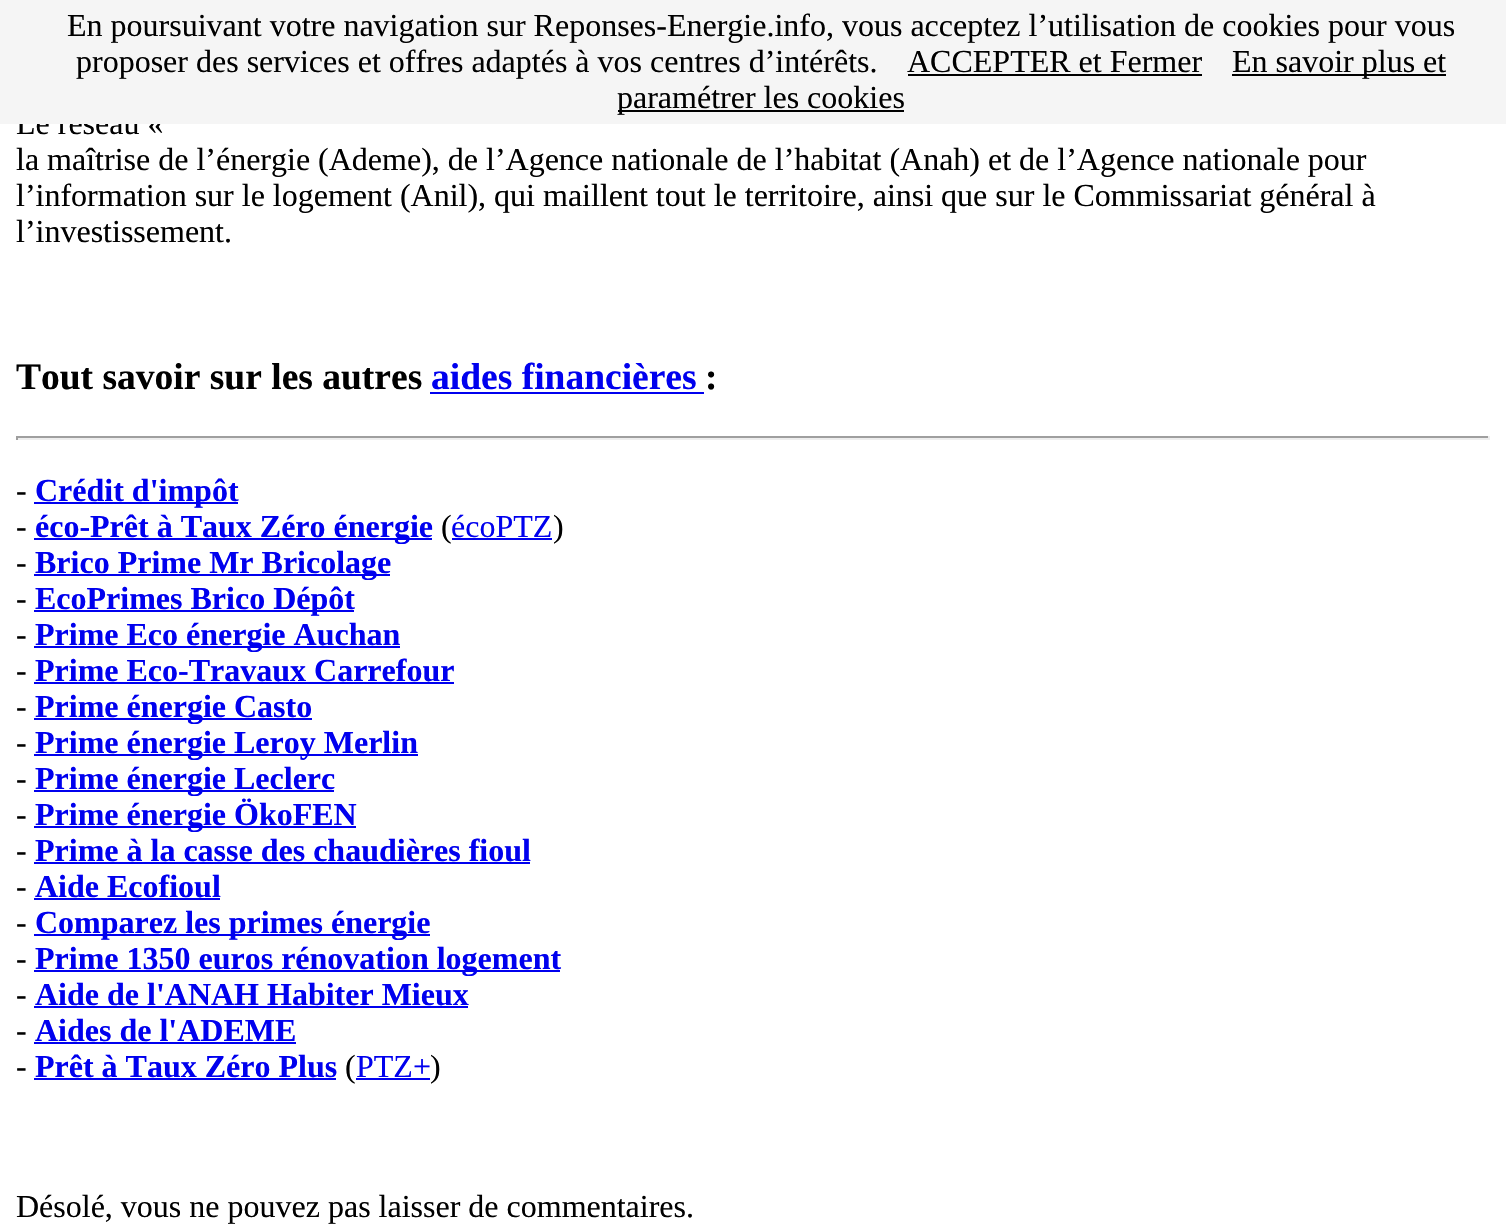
void draw(SkCanvas* canvas) {
  SkPaint paint;
  paint.setAntiAlias(true);
  auto face = [&](const char* family, int weight, float size, bool italic = false) {
    SkFontStyle style(weight, SkFontStyle::kNormal_Width,
      italic ? SkFontStyle::kItalic_Slant : SkFontStyle::kUpright_Slant);
    SkFont result(fontMgr->matchFamilyStyle(family, style), size);
    result.setSubpixel(true);
    return result;
  };
  canvas->clear(0xffffffff);
  {
    const struct { float x, y, w, h; SkColor color; } items[] = {
      {430, 392, 274, 2, 0xff0000ee},
      {16, 436, 1474, 2, 0xff9f9f9f},
      {1488, 436, 2, 4, 0xffeeeeee},
      {16, 438, 1474, 2, 0xffeeeeee},
      {16, 436, 2, 4, 0xff9f9f9f},
      {34, 502, 204, 2, 0xff0000ee},
      {34, 538, 398, 2, 0xff0000ee},
      {452, 538, 100, 2, 0xff0000ee},
      {34, 574, 356, 2, 0xff0000ee},
      {34, 610, 320, 2, 0xff0000ee},
      {34, 646, 366, 2, 0xff0000ee},
      {34, 682, 420, 2, 0xff0000ee},
      {34, 718, 278, 2, 0xff0000ee},
      {34, 754, 384, 2, 0xff0000ee},
      {34, 790, 300, 2, 0xff0000ee},
      {34, 826, 322, 2, 0xff0000ee},
      {34, 862, 496, 2, 0xff0000ee},
      {34, 898, 186, 2, 0xff0000ee},
      {34, 934, 396, 2, 0xff0000ee},
      {34, 970, 526, 2, 0xff0000ee},
      {34, 1006, 434, 2, 0xff0000ee},
      {34, 1042, 262, 2, 0xff0000ee},
      {34, 1078, 302, 2, 0xff0000ee},
      {356, 1078, 74, 2, 0xff0000ee},
    };
    for (auto [x, y, w, h, color] : items) {
      paint.setColor(color);
      canvas->drawRect(SkRect::MakeXYWH(x, y, w, h), paint);
    }
  }
  auto f0 = face("Liberation Serif", 400, 32);
  paint.setColor(0xff000000);
  canvas->drawString("Le réseau «", 16, 134, f0, paint);
  paint.setColor(0xfff5f5f5);
  canvas->drawRect(SkRect::MakeXYWH(0, 0, 1506, 124), paint);
  paint.setColor(0xff000000);
  canvas->drawRect(SkRect::MakeXYWH(618, 110, 286, 2), paint);
  canvas->drawString("paramétrer les cookies", 617, 108, f0, paint);
  canvas->drawRect(SkRect::MakeXYWH(1232, 74, 214, 2), paint);
  canvas->drawString("En savoir plus et", 1232, 72, f0, paint);
  canvas->drawString("ACCEPTER et Fermer", 907, 72, f0, paint);
  canvas->drawRect(SkRect::MakeXYWH(908, 74, 294, 2), paint);
  {
    const struct { const char* s; float x, y; } items[] = {
      {"proposer des services et offres adaptés à vos centres d’intérêts.", 76, 72},
      {"En poursuivant votre navigation sur Reponses-Energie.info, vous acceptez l’utilisation de cookies pour vous", 67, 36},
      {"la maîtrise de l’énergie (Ademe), de l’Agence nationale de l’habitat (Anah) et de l’Agence nationale pour", 16, 170},
      {"l’information sur le logement (Anil), qui maillent tout le territoire, ainsi que sur le Commissariat général à", 16, 206},
      {"l’investissement.", 16, 242},
    };
    for (auto [s, x, y] : items) {
      canvas->drawString(s, x, y, f0, paint);
    }
  }
  auto f1 = face("Liberation Serif", 700, 37.5f);
  canvas->drawString("Tout savoir sur les autres", 16, 389, f1, paint);
  paint.setColor(0xff0000ee);
  canvas->drawString("aides financières", 431, 389, f1, paint);
  paint.setColor(0xff000000);
  canvas->drawString(":", 705, 389, f1, paint);
  canvas->drawString("-", 16, 501, f0, paint);
  auto f2 = face("Liberation Serif", 700, 32);
  paint.setColor(0xff0000ee);
  canvas->drawString("Crédit d'impôt", 35, 501, f2, paint);
  paint.setColor(0xff000000);
  canvas->drawString("-", 16, 537, f0, paint);
  paint.setColor(0xff0000ee);
  canvas->drawString("éco-Prêt à Taux Zéro énergie", 35, 537, f2, paint);
  paint.setColor(0xff000000);
  canvas->drawString("(", 441, 537, f0, paint);
  paint.setColor(0xff0000ee);
  canvas->drawString("écoPTZ", 451, 537, f0, paint);
  paint.setColor(0xff000000);
  canvas->drawString(")", 553, 537, f0, paint);
  canvas->drawString("-", 16, 573, f0, paint);
  paint.setColor(0xff0000ee);
  canvas->drawString("Brico Prime Mr Bricolage", 35, 573, f2, paint);
  paint.setColor(0xff000000);
  canvas->drawString("-", 16, 609, f0, paint);
  paint.setColor(0xff0000ee);
  canvas->drawString("EcoPrimes Brico Dépôt", 35, 609, f2, paint);
  paint.setColor(0xff000000);
  canvas->drawString("-", 16, 645, f0, paint);
  paint.setColor(0xff0000ee);
  canvas->drawString("Prime Eco énergie Auchan", 35, 645, f2, paint);
  paint.setColor(0xff000000);
  canvas->drawString("-", 16, 681, f0, paint);
  paint.setColor(0xff0000ee);
  canvas->drawString("Prime Eco-Travaux Carrefour", 35, 681, f2, paint);
  paint.setColor(0xff000000);
  canvas->drawString("-", 16, 717, f0, paint);
  paint.setColor(0xff0000ee);
  canvas->drawString("Prime énergie Casto", 35, 717, f2, paint);
  paint.setColor(0xff000000);
  canvas->drawString("-", 16, 753, f0, paint);
  paint.setColor(0xff0000ee);
  canvas->drawString("Prime énergie Leroy Merlin", 35, 753, f2, paint);
  paint.setColor(0xff000000);
  canvas->drawString("-", 16, 789, f0, paint);
  paint.setColor(0xff0000ee);
  canvas->drawString("Prime énergie Leclerc", 35, 789, f2, paint);
  paint.setColor(0xff000000);
  canvas->drawString("-", 16, 825, f0, paint);
  paint.setColor(0xff0000ee);
  canvas->drawString("Prime énergie ÖkoFEN", 35, 825, f2, paint);
  paint.setColor(0xff000000);
  canvas->drawString("-", 16, 861, f0, paint);
  paint.setColor(0xff0000ee);
  canvas->drawString("Prime à la casse des chaudières fioul", 35, 861, f2, paint);
  paint.setColor(0xff000000);
  canvas->drawString("-", 16, 897, f0, paint);
  paint.setColor(0xff0000ee);
  canvas->drawString("Aide Ecofioul", 35, 897, f2, paint);
  paint.setColor(0xff000000);
  canvas->drawString("-", 16, 933, f0, paint);
  paint.setColor(0xff0000ee);
  canvas->drawString("Comparez les primes énergie", 35, 933, f2, paint);
  paint.setColor(0xff000000);
  canvas->drawString("-", 16, 969, f0, paint);
  paint.setColor(0xff0000ee);
  canvas->drawString("Prime 1350 euros rénovation logement", 35, 969, f2, paint);
  paint.setColor(0xff000000);
  canvas->drawString("-", 16, 1005, f0, paint);
  paint.setColor(0xff0000ee);
  canvas->drawString("Aide de l'ANAH Habiter Mieux", 35, 1005, f2, paint);
  paint.setColor(0xff000000);
  canvas->drawString("-", 16, 1041, f0, paint);
  paint.setColor(0xff0000ee);
  canvas->drawString("Aides de l'ADEME", 35, 1041, f2, paint);
  paint.setColor(0xff000000);
  canvas->drawString("-", 16, 1077, f0, paint);
  paint.setColor(0xff0000ee);
  canvas->drawString("Prêt à Taux Zéro Plus", 35, 1077, f2, paint);
  paint.setColor(0xff000000);
  canvas->drawString("(", 345, 1077, f0, paint);
  paint.setColor(0xff0000ee);
  canvas->drawString("PTZ+", 356, 1077, f0, paint);
  paint.setColor(0xff000000);
  canvas->drawString(")", 430, 1077, f0, paint);
  canvas->drawString("Désolé, vous ne pouvez pas laisser de commentaires.", 16, 1217, f0, paint);
}
